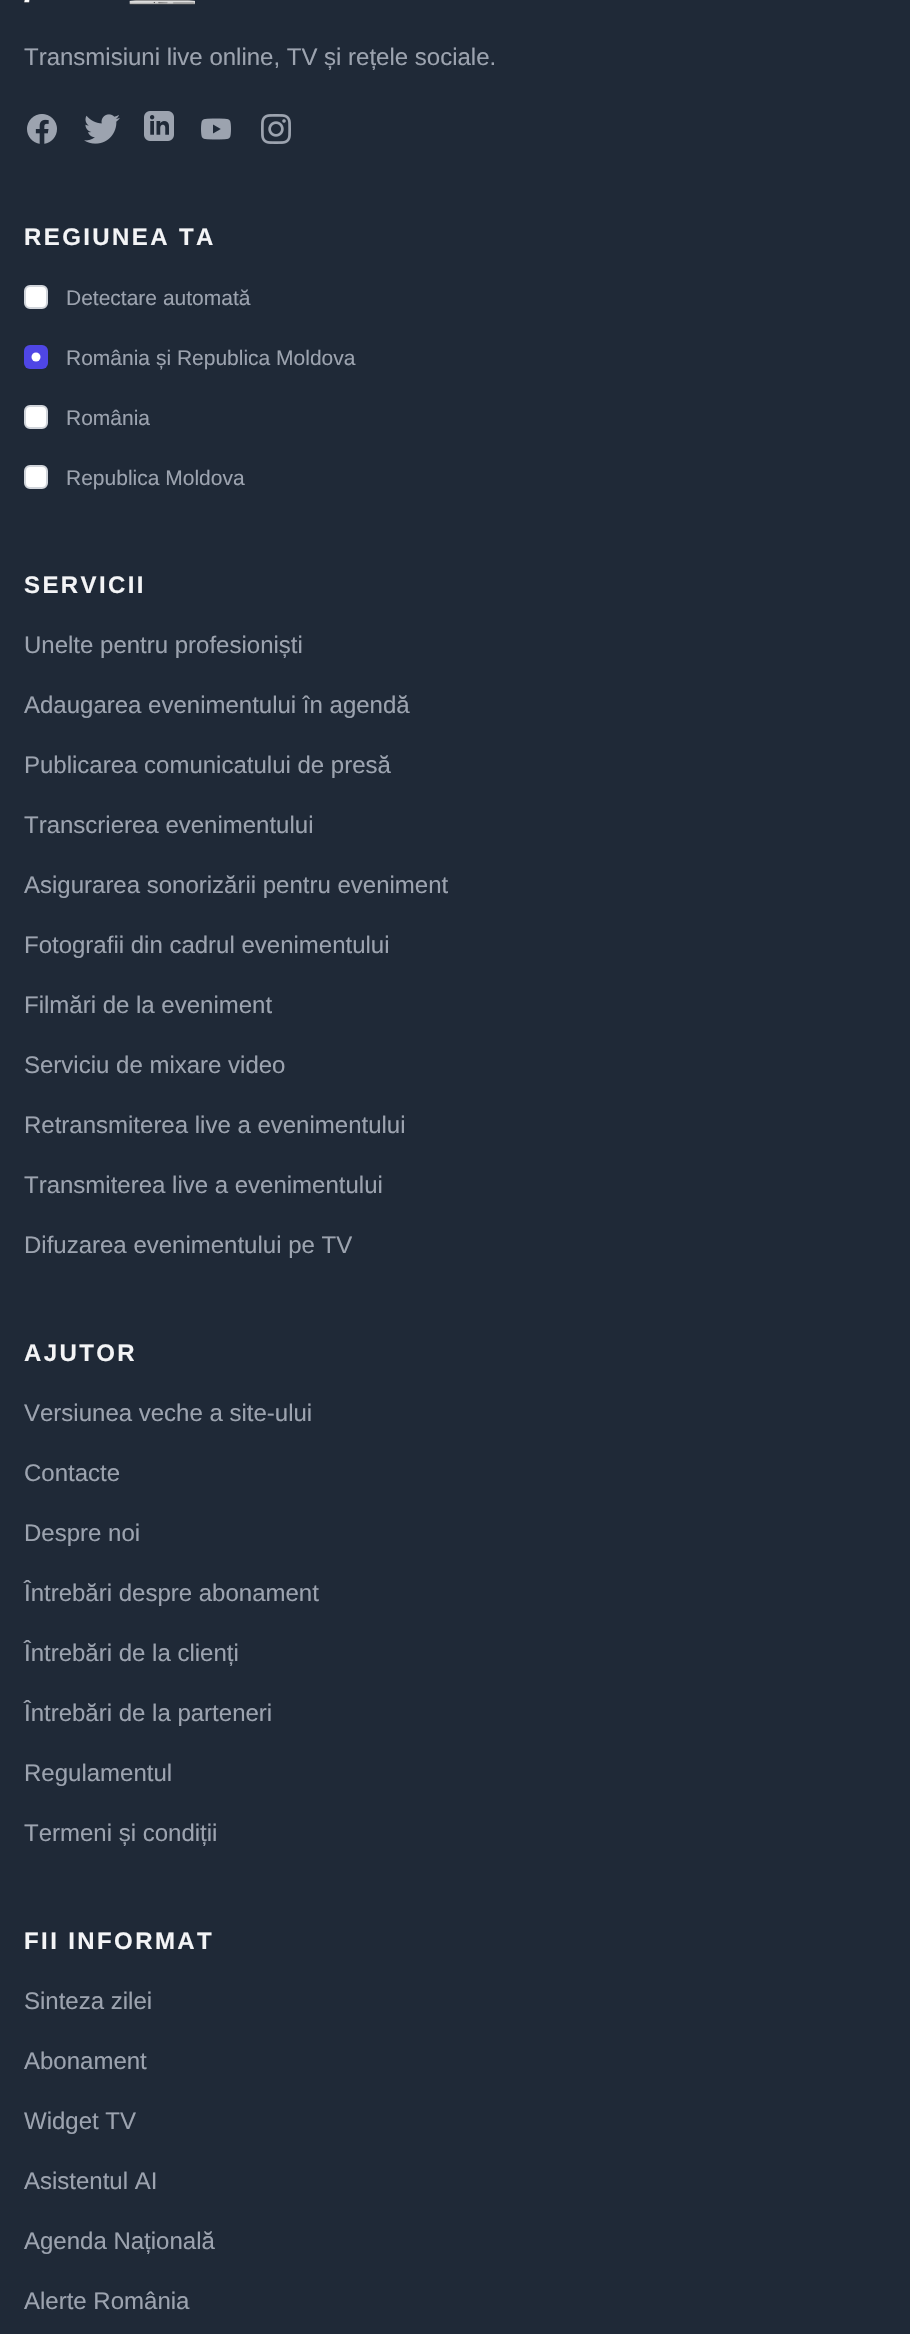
void draw(SkCanvas* canvas) {
  SkPaint paint;
  paint.setAntiAlias(true);
  auto face = [&](const char* family, int weight, float size, bool italic = false) {
    SkFontStyle style(weight, SkFontStyle::kNormal_Width,
      italic ? SkFontStyle::kItalic_Slant : SkFontStyle::kUpright_Slant);
    SkFont result(fontMgr->matchFamilyStyle(family, style), size);
    result.setSubpixel(true);
    return result;
  };
  auto writeSpaced = [&](const char* s, float x, float y, const SkFont& font, const SkPaint& ink, float letter, float word) {
    std::vector<SkGlyphID> glyphs(font.countText(s, strlen(s), SkTextEncoding::kUTF8));
    std::vector<float> xs(glyphs.size());
    font.textToGlyphs(s, strlen(s), SkTextEncoding::kUTF8, glyphs);
    font.getXPos(glyphs, xs, x);
    float extra = 0;
    for (size_t i = 0; i < glyphs.size(); i++) {
      xs[i] += extra;
      extra += letter + word * (glyphs[i] == font.unicharToGlyph(' '));
    }
    canvas->drawTextBlob(SkTextBlob::MakeFromPosHGlyphs(glyphs, xs, y, font), 0, 0, ink);
  };
  auto paste = [&](const char* path, float x, float y, float w, float h) {
    auto image = SkImages::DeferredFromEncodedData(SkData::MakeFromFileName(path));
    canvas->drawImageRect(image, SkRect::MakeXYWH(x, y, w, h), SkSamplingOptions());
  };
  canvas->clear(0xff1f2937);
  paste("img/1.png", 24, 0, 171, 5);
  paste("img/2.png", 27, 114, 30, 30);
  paste("img/3.png", 84, 114, 36, 30);
  paste("img/4.png", 144, 111, 30, 30);
  paste("img/5.png", 201, 118, 30, 22);
  paste("img/6.png", 261, 114, 30, 30);
  paint.setColor(0xffffffff);
  canvas->drawRoundRect(SkRect::MakeXYWH(25, 286, 22, 22), 5, 5, paint);
  paint.setStroke(true);
  paint.setStrokeWidth(2);
  paint.setColor(0xffd1d5db);
  canvas->drawRoundRect(SkRect::MakeXYWH(25, 286, 22, 22), 5, 5, paint);
  paint.setStroke(false);
  paint.setColor(0xff4f46e5);
  canvas->drawRoundRect(SkRect::MakeXYWH(24, 345, 24, 24), 6, 6, paint);
  paint.setColor(0xffffffff);
  canvas->drawCircle(36, 357, 4.5f, paint);
  canvas->drawRoundRect(SkRect::MakeXYWH(25, 406, 22, 22), 5, 5, paint);
  paint.setStroke(true);
  paint.setColor(0xffd1d5db);
  canvas->drawRoundRect(SkRect::MakeXYWH(25, 406, 22, 22), 5, 5, paint);
  paint.setStroke(false);
  paint.setColor(0xffffffff);
  canvas->drawRoundRect(SkRect::MakeXYWH(25, 466, 22, 22), 5, 5, paint);
  paint.setStroke(true);
  paint.setColor(0xffd1d5db);
  canvas->drawRoundRect(SkRect::MakeXYWH(25, 466, 22, 22), 5, 5, paint);
  auto f0 = face("Liberation Sans", 400, 24);
  paint.setStroke(false);
  paint.setColor(0xff9ca3af);
  canvas->drawString("Transmisiuni live online, TV și rețele sociale.", 24, 65, f0, paint);
  auto f1 = face("Liberation Sans", 700, 24);
  paint.setColor(0xfff3f4f6);
  writeSpaced("REGIUNEA TA", 24, 245, f1, paint, 2.4f, 0);
  auto f2 = face("Liberation Sans", 400, 21);
  paint.setColor(0xff9ca3af);
  {
    const struct { const char* s; float x, y; } items[] = {
      {"Detectare automată", 66, 305},
      {"România și Republica Moldova", 66, 365},
      {"România", 66, 425},
      {"Republica Moldova", 66, 485},
    };
    for (auto [s, x, y] : items) {
      canvas->drawString(s, x, y, f2, paint);
    }
  }
  paint.setColor(0xfff3f4f6);
  writeSpaced("SERVICII", 24, 593, f1, paint, 2.4f, 0);
  paint.setColor(0xff9ca3af);
  {
    const struct { const char* s; float x, y; } items[] = {
      {"Unelte pentru profesioniști", 24, 653},
      {"Adaugarea evenimentului în agendă", 24, 713},
      {"Publicarea comunicatului de presă", 24, 773},
      {"Transcrierea evenimentului", 24, 833},
      {"Asigurarea sonorizării pentru eveniment", 24, 893},
      {"Fotografii din cadrul evenimentului", 24, 953},
      {"Filmări de la eveniment", 24, 1013},
      {"Serviciu de mixare video", 24, 1073},
      {"Retransmiterea live a evenimentului", 24, 1133},
      {"Transmiterea live a evenimentului", 24, 1193},
      {"Difuzarea evenimentului pe TV", 24, 1253},
    };
    for (auto [s, x, y] : items) {
      canvas->drawString(s, x, y, f0, paint);
    }
  }
  paint.setColor(0xfff3f4f6);
  writeSpaced("AJUTOR", 24, 1361, f1, paint, 2.4f, 0);
  paint.setColor(0xff9ca3af);
  {
    const struct { const char* s; float x, y; } items[] = {
      {"Versiunea veche a site-ului", 24, 1421},
      {"Contacte", 24, 1481},
      {"Despre noi", 24, 1541},
      {"Întrebări despre abonament", 24, 1601},
      {"Întrebări de la clienți", 24, 1661},
      {"Întrebări de la parteneri", 24, 1721},
      {"Regulamentul", 24, 1781},
      {"Termeni și condiții", 24, 1841},
    };
    for (auto [s, x, y] : items) {
      canvas->drawString(s, x, y, f0, paint);
    }
  }
  paint.setColor(0xfff3f4f6);
  writeSpaced("FII INFORMAT", 24, 1949, f1, paint, 2.4f, 0);
  paint.setColor(0xff9ca3af);
  {
    const struct { const char* s; float x, y; } items[] = {
      {"Sinteza zilei", 24, 2009},
      {"Abonament", 24, 2069},
      {"Widget TV", 24, 2129},
      {"Asistentul AI", 24, 2189},
      {"Agenda Națională", 24, 2249},
      {"Alerte România", 24, 2309},
    };
    for (auto [s, x, y] : items) {
      canvas->drawString(s, x, y, f0, paint);
    }
  }
}
